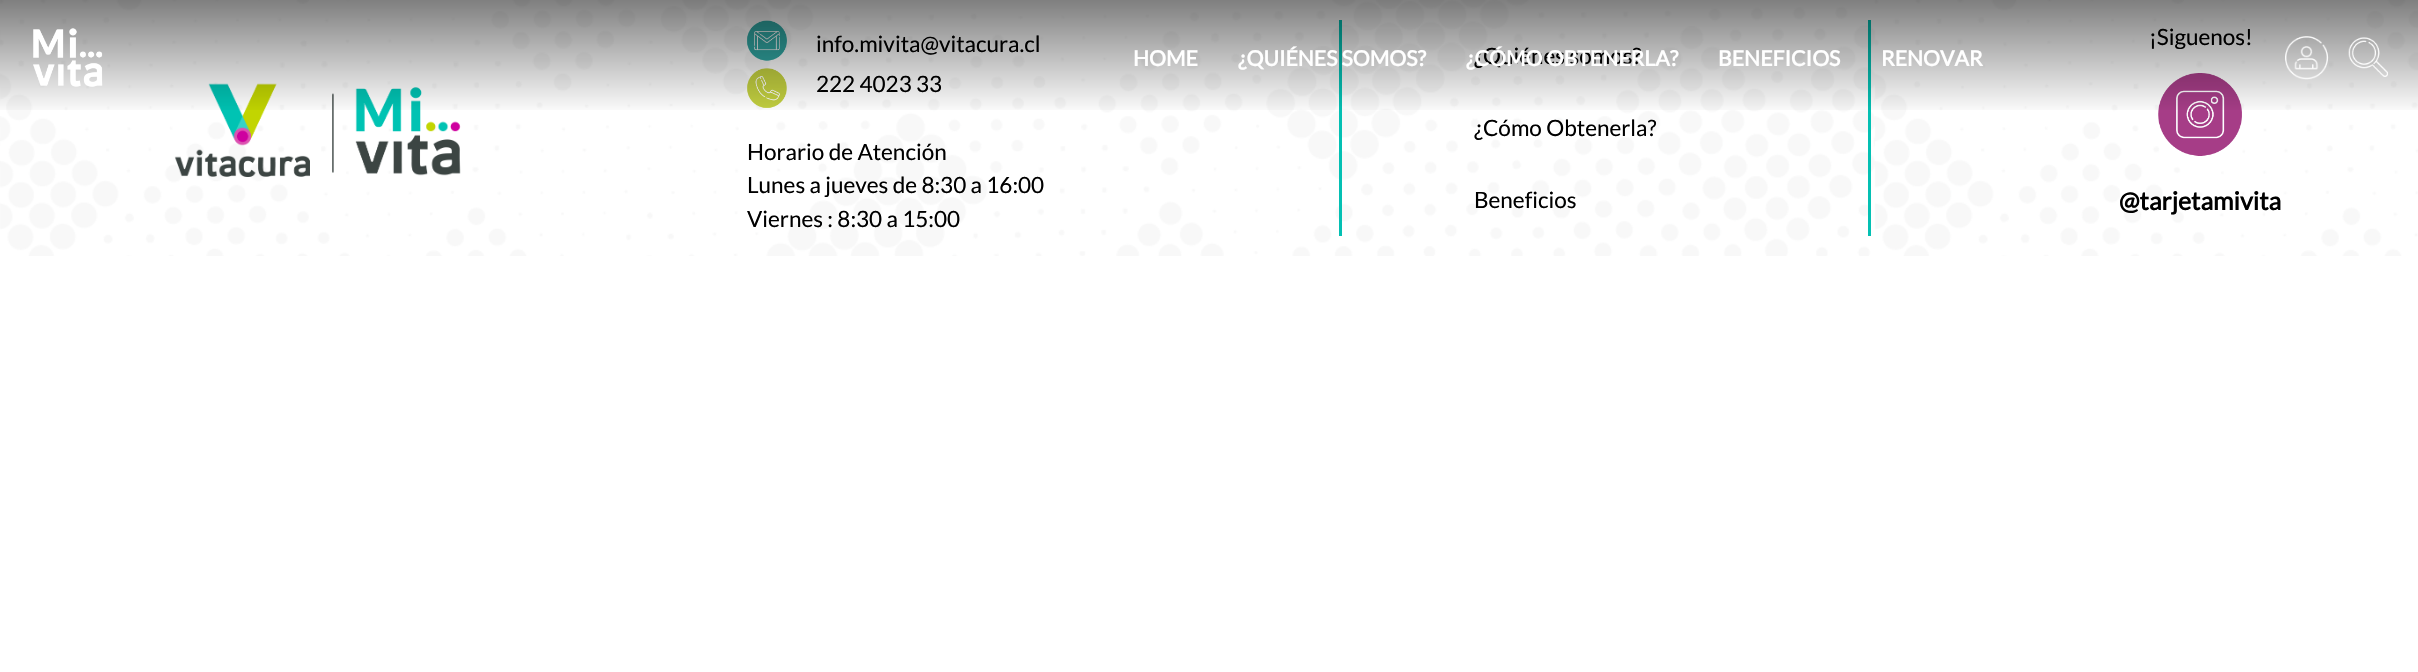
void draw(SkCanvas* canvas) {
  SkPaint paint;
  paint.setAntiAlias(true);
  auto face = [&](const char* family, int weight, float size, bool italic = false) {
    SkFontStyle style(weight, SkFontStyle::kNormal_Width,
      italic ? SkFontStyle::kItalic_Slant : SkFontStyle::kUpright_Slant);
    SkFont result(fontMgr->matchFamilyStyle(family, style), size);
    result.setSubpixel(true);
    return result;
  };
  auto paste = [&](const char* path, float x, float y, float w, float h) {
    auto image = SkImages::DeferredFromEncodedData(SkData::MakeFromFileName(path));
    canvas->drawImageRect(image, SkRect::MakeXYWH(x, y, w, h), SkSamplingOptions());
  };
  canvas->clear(0xffffffff);
  paste("img/1.png", 0, 0, 2418, 256);
  paste("img/2.png", 174, 83, 287, 94);
  paint.setColor(0xff04c0b3);
  canvas->drawRect(SkRect::MakeXYWH(1339, 20, 3, 216), paint);
  paste("img/3.png", 747, 20, 40, 41);
  paste("img/4.png", 747, 68, 40, 40);
  canvas->drawRect(SkRect::MakeXYWH(1868, 20, 3, 216), paint);
  paste("img/5.png", 2158, 73, 84, 83);
  auto f0 = face("Lato", 400, 22.5f);
  paint.setColor(0xff000000);
  {
    const struct { const char* s; float x, y; } items[] = {
      {"info.mivita@vitacura.cl", 816, 52},
      {"222 4023 33", 816, 92},
      {"Horario de Atención", 747, 160},
      {"Lunes a jueves de 8:30 a 16:00", 747, 193},
      {"Viernes : 8:30 a 15:00", 747, 227},
      {"¿Quiénes somos?", 1474, 64},
      {"¿Cómo Obtenerla?", 1474, 136},
      {"Beneficios", 1474, 208},
      {"¡Siguenos!", 2149, 45},
    };
    for (auto [s, x, y] : items) {
      canvas->drawString(s, x, y, f0, paint);
    }
  }
  auto f1 = face("Lato", 700, 25);
  canvas->drawString("@tarjetamivita", 2119, 210, f1, paint);
  {
    const SkColor colors[] = {0x80000000, 0x00000000};
    const float stops[] = {0, 1};
    const SkPoint ends[] = {{1209, 0}, {1209, 115}};
    paint.setShader(SkGradientShader::MakeLinear(ends, colors, stops, 2, SkTileMode::kClamp));
    paint.setAlpha(255);
  }
  canvas->drawRect(SkRect::MakeXYWH(0, 0, 2418, 110), paint);
  paste("img/6.png", 33, 28, 70, 59);
  auto f2 = face("Lato", 700, 21.25f);
  paint.setShader(nullptr);
  paint.setColor(0xffffffff);
  {
    const struct { const char* s; float x, y; } items[] = {
      {"HOME", 1133, 66},
      {"¿QUIÉNES SOMOS?", 1238, 66},
      {"¿CÓMO OBTENERLA?", 1466, 66},
      {"BENEFICIOS", 1718, 66},
      {"RENOVAR", 1881, 66},
    };
    for (auto [s, x, y] : items) {
      canvas->drawString(s, x, y, f2, paint);
    }
  }
  paste("img/7.png", 2285, 36, 44, 44);
  paste("img/8.png", 2348, 37, 40, 40);
}
